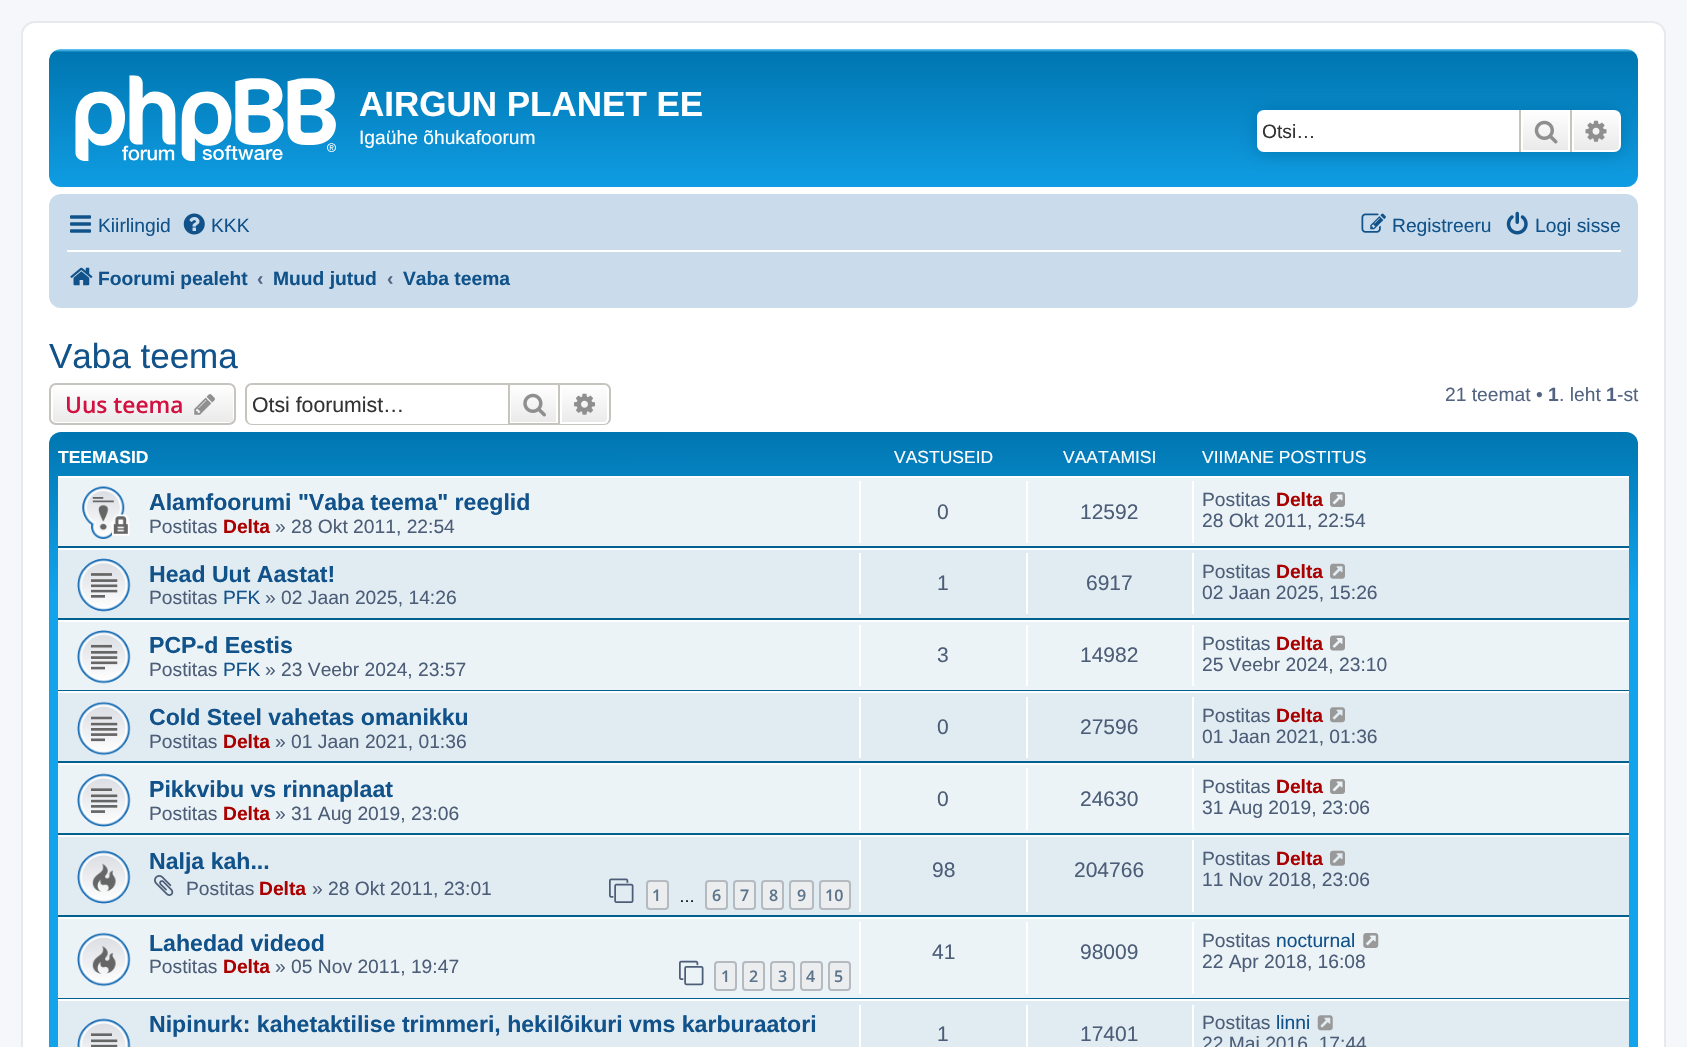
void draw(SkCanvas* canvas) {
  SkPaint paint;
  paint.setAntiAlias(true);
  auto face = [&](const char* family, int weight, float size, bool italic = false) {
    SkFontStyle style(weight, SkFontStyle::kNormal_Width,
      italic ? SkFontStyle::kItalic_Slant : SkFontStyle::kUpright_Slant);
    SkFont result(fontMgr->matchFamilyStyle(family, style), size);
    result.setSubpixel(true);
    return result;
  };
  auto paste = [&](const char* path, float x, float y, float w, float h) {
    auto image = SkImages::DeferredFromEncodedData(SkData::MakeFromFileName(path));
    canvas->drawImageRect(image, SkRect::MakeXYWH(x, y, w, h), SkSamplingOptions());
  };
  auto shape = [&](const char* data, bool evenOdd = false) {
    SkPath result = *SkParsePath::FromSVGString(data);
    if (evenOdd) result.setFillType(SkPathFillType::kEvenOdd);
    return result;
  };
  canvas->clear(0xfff5f7fa);
  paint.setColor(0xffffffff);
  canvas->drawRoundRect(SkRect::MakeXYWH(22, 22, 1643, 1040), 13, 13, paint);
  paint.setStroke(true);
  paint.setStrokeWidth(2);
  paint.setColor(0xffe6e9ed);
  canvas->drawRoundRect(SkRect::MakeXYWH(22, 22, 1643, 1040), 13, 13, paint);
  paint.setStroke(false);
  {
    const SkColor colors[] = {0xff6aceff, 0xff0076b1, 0xff12a3eb};
    const float stops[] = {0, 0.02f, 1};
    const SkPoint ends[] = {{844, 49}, {844, 210}};
    paint.setShader(SkGradientShader::MakeLinear(ends, colors, stops, 3, SkTileMode::kClamp));
    paint.setAlpha(255);
  }
  canvas->drawRoundRect(SkRect::MakeXYWH(49, 49, 1589, 138), 12, 12, paint);
  paste("img/1.png", 75, 75, 261, 86);
  paint.setShader(nullptr);
  paint.setColor(0xff0075b0);
  paint.setMaskFilter(SkMaskFilter::MakeBlur(kNormal_SkBlurStyle, 9));
  canvas->drawRoundRect(SkRect::MakeXYWH(1257, 110, 364, 42), 7, 7, paint);
  paint.setMaskFilter(nullptr);
  paint.setColor(0xffffffff);
  canvas->drawPath(shape("M1264 110H1519V152H1264C1260 152 1257 149 1257 145V117C1257 113 1260 110 1264 110Z"), paint);
  {
    const SkColor colors[] = {0xffffffff, 0xffe9e9e9};
    const float stops[] = {0, 1};
    const SkPoint ends[] = {{1545, 110}, {1545, 152}};
    paint.setShader(SkGradientShader::MakeLinear(ends, colors, stops, 2, SkTileMode::kClamp));
    paint.setAlpha(255);
  }
  canvas->drawRect(SkRect::MakeXYWH(1523, 112, 45, 38), paint);
  paint.setStroke(true);
  paint.setShader(nullptr);
  paint.setColor(0xffffffff);
  canvas->drawRect(SkRect::MakeXYWH(1522, 111, 47, 40), paint);
  paint.setStroke(false);
  paint.setColor(0xffc7c3bf);
  canvas->drawRect(SkRect::MakeXYWH(1570, 110, 2, 42), paint);
  canvas->drawRect(SkRect::MakeXYWH(1519, 110, 2, 42), paint);
  paste("img/2.png", 1534, 120, 24, 24);
  {
    const SkColor colors[] = {0xffffffff, 0xffe9e9e9};
    const float stops[] = {0, 1};
    const SkPoint ends[] = {{1596, 110}, {1596, 152}};
    paint.setShader(SkGradientShader::MakeLinear(ends, colors, stops, 2, SkTileMode::kClamp));
    paint.setAlpha(255);
  }
  canvas->drawPath(shape("M1573 111H1614C1617.5 111 1620 113.5 1620 117V145C1620 148.5 1617.5 151 1614 151H1573Z"), paint);
  paint.setStroke(true);
  paint.setShader(nullptr);
  paint.setColor(0xffffffff);
  canvas->drawPath(shape("M1573 111H1614C1617.5 111 1620 113.5 1620 117V145C1620 148.5 1617.5 151 1614 151H1573Z"), paint);
  paste("img/3.png", 1585, 120, 22, 22);
  paint.setStroke(false);
  paint.setColor(0xffcadceb);
  canvas->drawRoundRect(SkRect::MakeXYWH(49, 194, 1589, 114), 12, 12, paint);
  paste("img/4.png", 70, 215, 21, 18);
  paste("img/5.png", 183, 213, 22, 22);
  paste("img/6.png", 1361, 213, 25, 20);
  paste("img/7.png", 1506, 211, 22, 24);
  paint.setColor(0xffffffff);
  canvas->drawRect(SkRect::MakeXYWH(67, 250, 1554, 2), paint);
  paste("img/8.png", 70, 267, 23, 19);
  canvas->save();
  canvas->clipPath(shape("M56 383H229C233 383 236 386 236 390V418C236 422 233 425 229 425H56C52 425 49 422 49 418V390C49 386 52 383 56 383Z"), true);
  {
    const SkColor colors[] = {0xffffffff, 0xffe9e9e9};
    const float stops[] = {0, 1};
    const SkPoint ends[] = {{143, 385}, {143, 424}};
    paint.setShader(SkGradientShader::MakeLinear(ends, colors, stops, 2, SkTileMode::kClamp));
    paint.setAlpha(255);
  }
  canvas->drawRect(SkRect::MakeXYWH(49, 385, 187, 39), paint);
  canvas->restore();
  paint.setStroke(true);
  paint.setShader(nullptr);
  paint.setColor(0xffffffff);
  canvas->drawRoundRect(SkRect::MakeXYWH(52, 386, 182, 37), 4, 4, paint);
  paint.setColor(0xffc7c3bf);
  canvas->drawRoundRect(SkRect::MakeXYWH(50, 384, 185, 40), 6, 6, paint);
  paste("img/9.png", 194, 394, 21, 21);
  paint.setStroke(false);
  canvas->drawPath(shape("M252 383H508V425H252C248 425 245 422 245 418V390C245 386 248 383 252 383ZM252 385H508V424H252C249 424 247 421 247 418V390C247 387 249 385 252 385Z", true), paint);
  {
    const SkColor colors[] = {0xffffffff, 0xffe9e9e9};
    const float stops[] = {0, 1};
    const SkPoint ends[] = {{534, 385}, {534, 424}};
    paint.setShader(SkGradientShader::MakeLinear(ends, colors, stops, 2, SkTileMode::kClamp));
    paint.setAlpha(255);
  }
  canvas->drawRect(SkRect::MakeXYWH(511, 389, 45, 33), paint);
  paint.setStroke(true);
  paint.setShader(nullptr);
  paint.setColor(0xffc7c3bf);
  canvas->drawRect(SkRect::MakeXYWH(509, 384, 50, 40), paint);
  paste("img/10.png", 523, 393, 23, 24);
  paint.setStroke(false);
  {
    const SkColor colors[] = {0xffffffff, 0xffe9e9e9};
    const float stops[] = {0, 1};
    const SkPoint ends[] = {{585, 385}, {585, 424}};
    paint.setShader(SkGradientShader::MakeLinear(ends, colors, stops, 2, SkTileMode::kClamp));
    paint.setAlpha(255);
  }
  canvas->drawPath(shape("M561 386H604C606 386 608 388 608 390V419C608 421 606 423 604 423H561Z"), paint);
  paint.setStroke(true);
  paint.setShader(nullptr);
  paint.setColor(0xffffffff);
  canvas->drawPath(shape("M561 386H604C606 386 608 388 608 390V419C608 421 606 423 604 423H561Z"), paint);
  paint.setStroke(false);
  paint.setColor(0xffc7c3bf);
  canvas->drawPath(shape("M560 383H604C608 383 611 386 611 390V418C611 422 608 425 604 425H560ZM560 385H604C607 385 609 387 609 390V418C609 421 607 424 604 424H560Z", true), paint);
  paste("img/11.png", 574, 393, 21, 22);
  {
    const SkColor colors[] = {0xff6aceff, 0xff0076b1, 0xff12a3eb, 0xff12a3eb};
    const float stops[] = {0, 0, 0.1f, 1};
    const SkPoint ends[] = {{843, 432}, {844, 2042}};
    paint.setShader(SkGradientShader::MakeLinear(ends, colors, stops, 4, SkTileMode::kClamp));
    paint.setAlpha(255);
  }
  canvas->drawRoundRect(SkRect::MakeXYWH(49, 432, 1589, 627), 12, 12, paint);
  paint.setShader(nullptr);
  {
    const struct { float x, y, w, h; SkColor color; } items[] = {
      {58, 478, 1571, 68, 0xffecf3f7},
      {58, 476, 1571, 2, 0xffffffff},
      {58, 546, 1571, 2, 0xff00608f},
    };
    for (auto [x, y, w, h, color] : items) {
      paint.setColor(color);
      canvas->drawRect(SkRect::MakeXYWH(x, y, w, h), paint);
    }
  }
  paste("img/12.png", 82, 486, 48, 53);
  {
    const struct { float x, y, w, h; SkColor color; } items[] = {
      {859, 481, 2, 62, 0xffffffff},
      {1026, 481, 2, 62, 0xffffffff},
      {1192, 481, 2, 62, 0xffffffff},
    };
    for (auto [x, y, w, h, color] : items) {
      paint.setColor(color);
      canvas->drawRect(SkRect::MakeXYWH(x, y, w, h), paint);
    }
  }
  paste("img/13.png", 1330, 492, 15, 15);
  {
    const struct { float x, y, w, h; SkColor color; } items[] = {
      {58, 550, 1571, 68, 0xffe1ebf2},
      {58, 548, 1571, 2, 0xffffffff},
      {58, 618, 1571, 2, 0xff00608f},
    };
    for (auto [x, y, w, h, color] : items) {
      paint.setColor(color);
      canvas->drawRect(SkRect::MakeXYWH(x, y, w, h), paint);
    }
  }
  paste("img/14.png", 77, 558, 54, 54);
  {
    const struct { float x, y, w, h; SkColor color; } items[] = {
      {859, 553, 2, 61, 0xffffffff},
      {1026, 553, 2, 61, 0xffffffff},
      {1192, 553, 2, 61, 0xffffffff},
    };
    for (auto [x, y, w, h, color] : items) {
      paint.setColor(color);
      canvas->drawRect(SkRect::MakeXYWH(x, y, w, h), paint);
    }
  }
  paste("img/15.png", 1330, 563, 15, 16);
  {
    const struct { float x, y, w, h; SkColor color; } items[] = {
      {58, 622, 1571, 68, 0xffecf3f7},
      {58, 620, 1571, 2, 0xffffffff},
      {58, 690, 1571, 1, 0xff00608f},
    };
    for (auto [x, y, w, h, color] : items) {
      paint.setColor(color);
      canvas->drawRect(SkRect::MakeXYWH(x, y, w, h), paint);
    }
  }
  paste("img/16.png", 77, 630, 54, 54);
  {
    const struct { float x, y, w, h; SkColor color; } items[] = {
      {859, 625, 2, 61, 0xffffffff},
      {1026, 625, 2, 61, 0xffffffff},
      {1192, 625, 2, 61, 0xffffffff},
    };
    for (auto [x, y, w, h, color] : items) {
      paint.setColor(color);
      canvas->drawRect(SkRect::MakeXYWH(x, y, w, h), paint);
    }
  }
  paste("img/17.png", 1330, 635, 15, 16);
  {
    const struct { float x, y, w, h; SkColor color; } items[] = {
      {58, 693, 1571, 68, 0xffe1ebf2},
      {58, 691, 1571, 2, 0xffffffff},
      {58, 761, 1571, 2, 0xff00608f},
    };
    for (auto [x, y, w, h, color] : items) {
      paint.setColor(color);
      canvas->drawRect(SkRect::MakeXYWH(x, y, w, h), paint);
    }
  }
  paste("img/18.png", 77, 701, 54, 55);
  {
    const struct { float x, y, w, h; SkColor color; } items[] = {
      {859, 697, 2, 61, 0xffffffff},
      {1026, 697, 2, 61, 0xffffffff},
      {1192, 697, 2, 61, 0xffffffff},
    };
    for (auto [x, y, w, h, color] : items) {
      paint.setColor(color);
      canvas->drawRect(SkRect::MakeXYWH(x, y, w, h), paint);
    }
  }
  paste("img/19.png", 1330, 707, 15, 16);
  {
    const struct { float x, y, w, h; SkColor color; } items[] = {
      {58, 765, 1571, 68, 0xffecf3f7},
      {58, 763, 1571, 2, 0xffffffff},
      {58, 833, 1571, 2, 0xff00608f},
    };
    for (auto [x, y, w, h, color] : items) {
      paint.setColor(color);
      canvas->drawRect(SkRect::MakeXYWH(x, y, w, h), paint);
    }
  }
  paste("img/20.png", 77, 773, 54, 54);
  {
    const struct { float x, y, w, h; SkColor color; } items[] = {
      {859, 768, 2, 62, 0xffffffff},
      {1026, 768, 2, 62, 0xffffffff},
      {1192, 768, 2, 62, 0xffffffff},
    };
    for (auto [x, y, w, h, color] : items) {
      paint.setColor(color);
      canvas->drawRect(SkRect::MakeXYWH(x, y, w, h), paint);
    }
  }
  paste("img/13.png", 1330, 779, 15, 15);
  {
    const struct { float x, y, w, h; SkColor color; } items[] = {
      {58, 837, 1571, 78, 0xffe1ebf2},
      {58, 835, 1571, 2, 0xffffffff},
      {58, 915, 1571, 2, 0xff00608f},
    };
    for (auto [x, y, w, h, color] : items) {
      paint.setColor(color);
      canvas->drawRect(SkRect::MakeXYWH(x, y, w, h), paint);
    }
  }
  paste("img/21.png", 77, 850, 54, 54);
  paste("img/22.png", 154, 875, 20, 21);
  paste("img/23.png", 609, 878, 25, 25);
  paint.setColor(0xffecedee);
  canvas->drawRoundRect(SkRect::MakeXYWH(647, 881, 21, 28), 3, 3, paint);
  paint.setStroke(true);
  paint.setColor(0xffb4bac0);
  canvas->drawRoundRect(SkRect::MakeXYWH(647, 881, 21, 28), 3, 3, paint);
  paint.setStroke(false);
  paint.setColor(0xffecedee);
  canvas->drawRoundRect(SkRect::MakeXYWH(706, 881, 21, 28), 3, 3, paint);
  paint.setStroke(true);
  paint.setColor(0xffb4bac0);
  canvas->drawRoundRect(SkRect::MakeXYWH(706, 881, 21, 28), 3, 3, paint);
  paint.setStroke(false);
  paint.setColor(0xffecedee);
  canvas->drawRoundRect(SkRect::MakeXYWH(734, 881, 21, 28), 3, 3, paint);
  paint.setStroke(true);
  paint.setColor(0xffb4bac0);
  canvas->drawRoundRect(SkRect::MakeXYWH(734, 881, 21, 28), 3, 3, paint);
  paint.setStroke(false);
  paint.setColor(0xffecedee);
  canvas->drawRoundRect(SkRect::MakeXYWH(762, 881, 21, 28), 3, 3, paint);
  paint.setStroke(true);
  paint.setColor(0xffb4bac0);
  canvas->drawRoundRect(SkRect::MakeXYWH(762, 881, 21, 28), 3, 3, paint);
  paint.setStroke(false);
  paint.setColor(0xffecedee);
  canvas->drawRoundRect(SkRect::MakeXYWH(790, 881, 23, 28), 3, 3, paint);
  paint.setStroke(true);
  paint.setColor(0xffb4bac0);
  canvas->drawRoundRect(SkRect::MakeXYWH(790, 881, 23, 28), 3, 3, paint);
  paint.setStroke(false);
  paint.setColor(0xffecedee);
  canvas->drawRoundRect(SkRect::MakeXYWH(820, 881, 30, 28), 3, 3, paint);
  paint.setStroke(true);
  paint.setColor(0xffb4bac0);
  canvas->drawRoundRect(SkRect::MakeXYWH(820, 881, 30, 28), 3, 3, paint);
  paint.setStroke(false);
  {
    const struct { float x, y, w, h; SkColor color; } items[] = {
      {859, 840, 2, 72, 0xffffffff},
      {1026, 840, 2, 72, 0xffffffff},
      {1192, 840, 2, 72, 0xffffffff},
    };
    for (auto [x, y, w, h, color] : items) {
      paint.setColor(color);
      canvas->drawRect(SkRect::MakeXYWH(x, y, w, h), paint);
    }
  }
  paste("img/15.png", 1330, 850, 15, 16);
  {
    const struct { float x, y, w, h; SkColor color; } items[] = {
      {58, 919, 1571, 79, 0xffecf3f7},
      {58, 917, 1571, 2, 0xffffffff},
      {58, 998, 1571, 1, 0xff00608f},
    };
    for (auto [x, y, w, h, color] : items) {
      paint.setColor(color);
      canvas->drawRect(SkRect::MakeXYWH(x, y, w, h), paint);
    }
  }
  paste("img/24.png", 77, 932, 54, 55);
  paste("img/25.png", 679, 960, 25, 26);
  paint.setColor(0xffecedee);
  canvas->drawRoundRect(SkRect::MakeXYWH(715, 962, 21, 28), 3, 3, paint);
  paint.setStroke(true);
  paint.setColor(0xffb4bac0);
  canvas->drawRoundRect(SkRect::MakeXYWH(715, 962, 21, 28), 3, 3, paint);
  paint.setStroke(false);
  paint.setColor(0xffecedee);
  canvas->drawRoundRect(SkRect::MakeXYWH(743, 962, 21, 28), 3, 3, paint);
  paint.setStroke(true);
  paint.setColor(0xffb4bac0);
  canvas->drawRoundRect(SkRect::MakeXYWH(743, 962, 21, 28), 3, 3, paint);
  paint.setStroke(false);
  paint.setColor(0xffecedee);
  canvas->drawRoundRect(SkRect::MakeXYWH(771, 962, 23, 28), 3, 3, paint);
  paint.setStroke(true);
  paint.setColor(0xffb4bac0);
  canvas->drawRoundRect(SkRect::MakeXYWH(771, 962, 23, 28), 3, 3, paint);
  paint.setStroke(false);
  paint.setColor(0xffecedee);
  canvas->drawRoundRect(SkRect::MakeXYWH(801, 962, 21, 28), 3, 3, paint);
  paint.setStroke(true);
  paint.setColor(0xffb4bac0);
  canvas->drawRoundRect(SkRect::MakeXYWH(801, 962, 21, 28), 3, 3, paint);
  paint.setStroke(false);
  paint.setColor(0xffecedee);
  canvas->drawRoundRect(SkRect::MakeXYWH(829, 962, 21, 28), 3, 3, paint);
  paint.setStroke(true);
  paint.setColor(0xffb4bac0);
  canvas->drawRoundRect(SkRect::MakeXYWH(829, 962, 21, 28), 3, 3, paint);
  paint.setStroke(false);
  {
    const struct { float x, y, w, h; SkColor color; } items[] = {
      {859, 922, 2, 72, 0xffffffff},
      {1026, 922, 2, 72, 0xffffffff},
      {1192, 922, 2, 72, 0xffffffff},
    };
    for (auto [x, y, w, h, color] : items) {
      paint.setColor(color);
      canvas->drawRect(SkRect::MakeXYWH(x, y, w, h), paint);
    }
  }
  paste("img/26.png", 1363, 933, 16, 15);
  paint.setColor(0xffe1ebf2);
  canvas->drawRect(SkRect::MakeXYWH(58, 1001, 1571, 46), paint);
  paint.setColor(0xffffffff);
  canvas->drawRect(SkRect::MakeXYWH(58, 999, 1571, 2), paint);
  paste("img/27.png", 77, 1018, 54, 29);
  {
    const struct { float x, y, w, h; SkColor color; } items[] = {
      {859, 1005, 2, 42, 0xffffffff},
      {1026, 1005, 2, 42, 0xffffffff},
      {1192, 1005, 2, 42, 0xffffffff},
    };
    for (auto [x, y, w, h, color] : items) {
      paint.setColor(color);
      canvas->drawRect(SkRect::MakeXYWH(x, y, w, h), paint);
    }
  }
  paste("img/28.png", 1317, 1015, 16, 16);
  auto f0 = face("Liberation Sans", 700, 35);
  canvas->drawString("AIRGUN PLANET EE", 359, 116, f0, paint);
  auto f1 = face("Liberation Sans", 400, 19.25f);
  canvas->drawString("Igaühe õhukafoorum", 359, 144, f1, paint);
  paint.setColor(0xff333333);
  canvas->drawString("Otsi…", 1262, 138, f1, paint);
  paint.setColor(0xff105289);
  {
    const struct { const char* s; float x, y; } items[] = {
      {"Kiirlingid", 98, 232},
      {"KKK", 211, 232},
      {"Registreeru", 1392, 232},
      {"Logi sisse", 1535, 232},
    };
    for (auto [s, x, y] : items) {
      canvas->drawString(s, x, y, f1, paint);
    }
  }
  auto f2 = face("Liberation Sans", 700, 19.25f);
  canvas->drawString("Foorumi pealeht", 98, 285, f2, paint);
  paint.setColor(0xff536482);
  canvas->drawString("‹", 257, 285, f2, paint);
  paint.setColor(0xff105289);
  canvas->drawString("Muud jutud", 273, 285, f2, paint);
  paint.setColor(0xff536482);
  canvas->drawString("‹", 387, 285, f2, paint);
  paint.setColor(0xff105289);
  canvas->drawString("Vaba teema", 403, 285, f2, paint);
  auto f3 = face("Liberation Sans", 400, 35);
  canvas->drawString("Vaba teema", 49, 368, f3, paint);
  paint.setColor(0xff536482);
  canvas->drawString("21 teemat •", 1445, 401, f1, paint);
  canvas->drawString("1", 1548, 401, f2, paint);
  canvas->drawString(". leht", 1559, 401, f1, paint);
  canvas->drawString("1", 1606, 401, f2, paint);
  canvas->drawString("-st", 1617, 401, f1, paint);
  auto f4 = face("Open Sans", 600, 22.75f);
  paint.setColor(0xffd31141);
  canvas->drawString("Uus teema", 65, 413, f4, paint);
  auto f5 = face("Liberation Sans", 400, 21.25f);
  paint.setColor(0xff333333);
  canvas->drawString("Otsi foorumist…", 252, 412, f5, paint);
  auto f6 = face("Liberation Sans", 700, 17.5f);
  paint.setColor(0xffffffff);
  canvas->drawString("TEEMASID", 58, 463, f6, paint);
  auto f7 = face("Liberation Sans", 400, 17.5f);
  {
    const struct { const char* s; float x, y; } items[] = {
      {"VASTUSEID", 894, 463},
      {"VAATAMISI", 1063, 463},
      {"VIIMANE POSTITUS", 1202, 463},
    };
    for (auto [s, x, y] : items) {
      canvas->drawString(s, x, y, f7, paint);
    }
  }
  auto f8 = face("Liberation Sans", 700, 23.1f);
  paint.setColor(0xff105289);
  canvas->drawString("Alamfoorumi \"Vaba teema\" reeglid", 149, 510, f8, paint);
  paint.setColor(0xff4c5d77);
  canvas->drawString("Postitas", 149, 533, f1, paint);
  paint.setColor(0xffaa0000);
  canvas->drawString("Delta", 223, 533, f2, paint);
  paint.setColor(0xff4c5d77);
  canvas->drawString("» 28 Okt 2011, 22:54", 275, 533, f1, paint);
  auto f9 = face("Liberation Sans", 400, 21);
  canvas->drawString("0", 937, 519, f9, paint);
  canvas->drawString("12592", 1080, 519, f9, paint);
  canvas->drawString("Postitas", 1202, 506, f1, paint);
  paint.setColor(0xffaa0000);
  canvas->drawString("Delta", 1276, 506, f2, paint);
  paint.setColor(0xff4c5d77);
  canvas->drawString("28 Okt 2011, 22:54", 1202, 527, f1, paint);
  paint.setColor(0xff105289);
  canvas->drawString("Head Uut Aastat!", 149, 582, f8, paint);
  paint.setColor(0xff4c5d77);
  canvas->drawString("Postitas", 149, 604, f1, paint);
  paint.setColor(0xff105289);
  canvas->drawString("PFK", 223, 604, f1, paint);
  paint.setColor(0xff4c5d77);
  canvas->drawString("» 02 Jaan 2025, 14:26", 265, 604, f1, paint);
  canvas->drawString("1", 937, 590, f9, paint);
  canvas->drawString("6917", 1086, 590, f9, paint);
  canvas->drawString("Postitas", 1202, 578, f1, paint);
  paint.setColor(0xffaa0000);
  canvas->drawString("Delta", 1276, 578, f2, paint);
  paint.setColor(0xff4c5d77);
  canvas->drawString("02 Jaan 2025, 15:26", 1202, 599, f1, paint);
  paint.setColor(0xff105289);
  canvas->drawString("PCP-d Eestis", 149, 653, f8, paint);
  paint.setColor(0xff4c5d77);
  canvas->drawString("Postitas", 149, 676, f1, paint);
  paint.setColor(0xff105289);
  canvas->drawString("PFK", 223, 676, f1, paint);
  paint.setColor(0xff4c5d77);
  canvas->drawString("» 23 Veebr 2024, 23:57", 265, 676, f1, paint);
  canvas->drawString("3", 937, 662, f9, paint);
  canvas->drawString("14982", 1080, 662, f9, paint);
  canvas->drawString("Postitas", 1202, 650, f1, paint);
  paint.setColor(0xffaa0000);
  canvas->drawString("Delta", 1276, 650, f2, paint);
  paint.setColor(0xff4c5d77);
  canvas->drawString("25 Veebr 2024, 23:10", 1202, 671, f1, paint);
  paint.setColor(0xff105289);
  canvas->drawString("Cold Steel vahetas omanikku", 149, 725, f8, paint);
  paint.setColor(0xff4c5d77);
  canvas->drawString("Postitas", 149, 748, f1, paint);
  paint.setColor(0xffaa0000);
  canvas->drawString("Delta", 223, 748, f2, paint);
  paint.setColor(0xff4c5d77);
  canvas->drawString("» 01 Jaan 2021, 01:36", 275, 748, f1, paint);
  canvas->drawString("0", 937, 734, f9, paint);
  canvas->drawString("27596", 1080, 734, f9, paint);
  canvas->drawString("Postitas", 1202, 722, f1, paint);
  paint.setColor(0xffaa0000);
  canvas->drawString("Delta", 1276, 722, f2, paint);
  paint.setColor(0xff4c5d77);
  canvas->drawString("01 Jaan 2021, 01:36", 1202, 743, f1, paint);
  paint.setColor(0xff105289);
  canvas->drawString("Pikkvibu vs rinnaplaat", 149, 797, f8, paint);
  paint.setColor(0xff4c5d77);
  canvas->drawString("Postitas", 149, 820, f1, paint);
  paint.setColor(0xffaa0000);
  canvas->drawString("Delta", 223, 820, f2, paint);
  paint.setColor(0xff4c5d77);
  canvas->drawString("» 31 Aug 2019, 23:06", 275, 820, f1, paint);
  canvas->drawString("0", 937, 806, f9, paint);
  canvas->drawString("24630", 1080, 806, f9, paint);
  canvas->drawString("Postitas", 1202, 793, f1, paint);
  paint.setColor(0xffaa0000);
  canvas->drawString("Delta", 1276, 793, f2, paint);
  paint.setColor(0xff4c5d77);
  canvas->drawString("31 Aug 2019, 23:06", 1202, 814, f1, paint);
  paint.setColor(0xff105289);
  canvas->drawString("Nalja kah...", 149, 869, f8, paint);
  paint.setColor(0xff4c5d77);
  canvas->drawString("Postitas", 186, 895, f1, paint);
  paint.setColor(0xffaa0000);
  canvas->drawString("Delta", 259, 895, f2, paint);
  paint.setColor(0xff4c5d77);
  canvas->drawString("» 28 Okt 2011, 23:01", 312, 895, f1, paint);
  auto f10 = face("Open Sans", 600, 16);
  paint.setColor(0xff5c758c);
  canvas->drawString("1", 652, 901, f10, paint);
  auto f11 = face("Liberation Sans", 400, 16);
  paint.setColor(0xff000000);
  canvas->drawString("…", 679, 902, f11, paint);
  paint.setColor(0xff5c758c);
  {
    const struct { const char* s; float x, y; } items[] = {
      {"6", 712, 901},
      {"7", 740, 901},
      {"8", 769, 901},
      {"9", 797, 901},
      {"10", 825, 901},
    };
    for (auto [s, x, y] : items) {
      canvas->drawString(s, x, y, f10, paint);
    }
  }
  paint.setColor(0xff4c5d77);
  canvas->drawString("98", 932, 877, f9, paint);
  canvas->drawString("204766", 1074, 877, f9, paint);
  canvas->drawString("Postitas", 1202, 865, f1, paint);
  paint.setColor(0xffaa0000);
  canvas->drawString("Delta", 1276, 865, f2, paint);
  paint.setColor(0xff4c5d77);
  canvas->drawString("11 Nov 2018, 23:06", 1202, 886, f1, paint);
  paint.setColor(0xff105289);
  canvas->drawString("Lahedad videod", 149, 951, f8, paint);
  paint.setColor(0xff4c5d77);
  canvas->drawString("Postitas", 149, 973, f1, paint);
  paint.setColor(0xffaa0000);
  canvas->drawString("Delta", 223, 973, f2, paint);
  paint.setColor(0xff4c5d77);
  canvas->drawString("» 05 Nov 2011, 19:47", 275, 973, f1, paint);
  paint.setColor(0xff5c758c);
  {
    const struct { const char* s; float x, y; } items[] = {
      {"1", 721, 982},
      {"2", 749, 982},
      {"3", 778, 982},
      {"4", 806, 982},
      {"5", 834, 982},
    };
    for (auto [s, x, y] : items) {
      canvas->drawString(s, x, y, f10, paint);
    }
  }
  paint.setColor(0xff4c5d77);
  canvas->drawString("41", 932, 959, f9, paint);
  canvas->drawString("98009", 1080, 959, f9, paint);
  canvas->drawString("Postitas", 1202, 947, f1, paint);
  paint.setColor(0xff105289);
  canvas->drawString("nocturnal", 1276, 947, f1, paint);
  paint.setColor(0xff4c5d77);
  canvas->drawString("22 Apr 2018, 16:08", 1202, 968, f1, paint);
  paint.setColor(0xff105289);
  canvas->drawString("Nipinurk: kahetaktilise trimmeri, hekilõikuri vms karburaatori", 149, 1032, f8, paint);
  paint.setColor(0xff4c5d77);
  canvas->drawString("1", 937, 1041, f9, paint);
  canvas->drawString("17401", 1080, 1041, f9, paint);
  canvas->drawString("Postitas", 1202, 1029, f1, paint);
  paint.setColor(0xff105289);
  canvas->drawString("linni", 1276, 1029, f1, paint);
  paint.setColor(0xff4c5d77);
  canvas->drawString("22 Mai 2016, 17:44", 1202, 1050, f1, paint);
}
